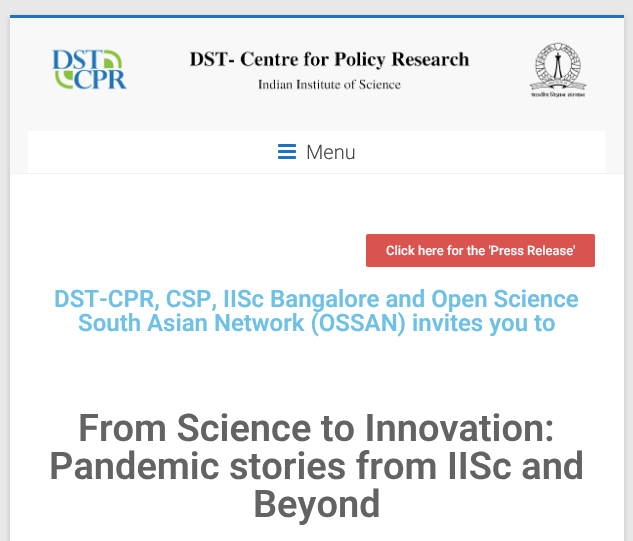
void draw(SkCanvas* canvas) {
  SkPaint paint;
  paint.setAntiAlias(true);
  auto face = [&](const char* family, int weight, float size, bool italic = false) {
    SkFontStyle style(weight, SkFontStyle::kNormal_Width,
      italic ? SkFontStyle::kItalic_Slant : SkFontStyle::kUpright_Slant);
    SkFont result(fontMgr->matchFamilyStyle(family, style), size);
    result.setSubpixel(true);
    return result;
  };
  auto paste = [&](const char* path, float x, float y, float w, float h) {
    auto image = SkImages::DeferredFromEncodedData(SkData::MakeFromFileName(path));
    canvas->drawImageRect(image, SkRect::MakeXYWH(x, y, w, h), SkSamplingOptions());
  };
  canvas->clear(0xffe8e8e8);
  paint.setColor(0x4d646464);
  paint.setMaskFilter(SkMaskFilter::MakeBlur(kNormal_SkBlurStyle, 3));
  canvas->drawRect(SkRect::MakeXYWH(10, 17, 614, 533), paint);
  paint.setMaskFilter(nullptr);
  {
    const struct { float x, y, w, h; SkColor color; } items[] = {
      {10, 174, 614, 367, 0xffffffff},
      {10, 15, 614, 3, 0xff1e73be},
      {10, 18, 614, 155, 0xfff8f8f8},
      {10, 173, 614, 1, 0xfff2f2f2},
    };
    for (auto [x, y, w, h, color] : items) {
      paint.setColor(color);
      canvas->drawRect(SkRect::MakeXYWH(x, y, w, h), paint);
    }
  }
  paste("img/1.png", 51, 42, 536, 56);
  paint.setColor(0xffffffff);
  canvas->drawRect(SkRect::MakeXYWH(28, 131, 577, 42), paint);
  paste("img/2.png", 278, 144, 18, 15);
  paint.setColor(0xffd9534f);
  canvas->drawRoundRect(SkRect::MakeXYWH(366, 234, 229, 33), 2, 2, paint);
  auto f0 = face("Roboto", 300, 20);
  paint.setColor(0xff444444);
  canvas->drawString("Menu", 306, 159, f0, paint);
  auto f1 = face("Roboto", 500, 13);
  paint.setColor(0xffffffff);
  canvas->drawString("Click here for the 'Press Release'", 386, 255, f1, paint);
  auto f2 = face("Roboto", 600, 24);
  paint.setColor(0xff6ec1e4);
  canvas->drawString("DST-CPR, CSP, IISc Bangalore and Open Science", 54, 307, f2, paint);
  canvas->drawString("South Asian Network (OSSAN) invites you to", 78, 331, f2, paint);
  auto f3 = face("Roboto", 600, 38);
  paint.setColor(0xff636363);
  {
    const struct { const char* s; float x, y; } items[] = {
      {"From Science to Innovation:", 78, 441},
      {"Pandemic stories from IISc and", 49, 479},
      {"Beyond", 253, 517},
    };
    for (auto [s, x, y] : items) {
      canvas->drawString(s, x, y, f3, paint);
    }
  }
}
